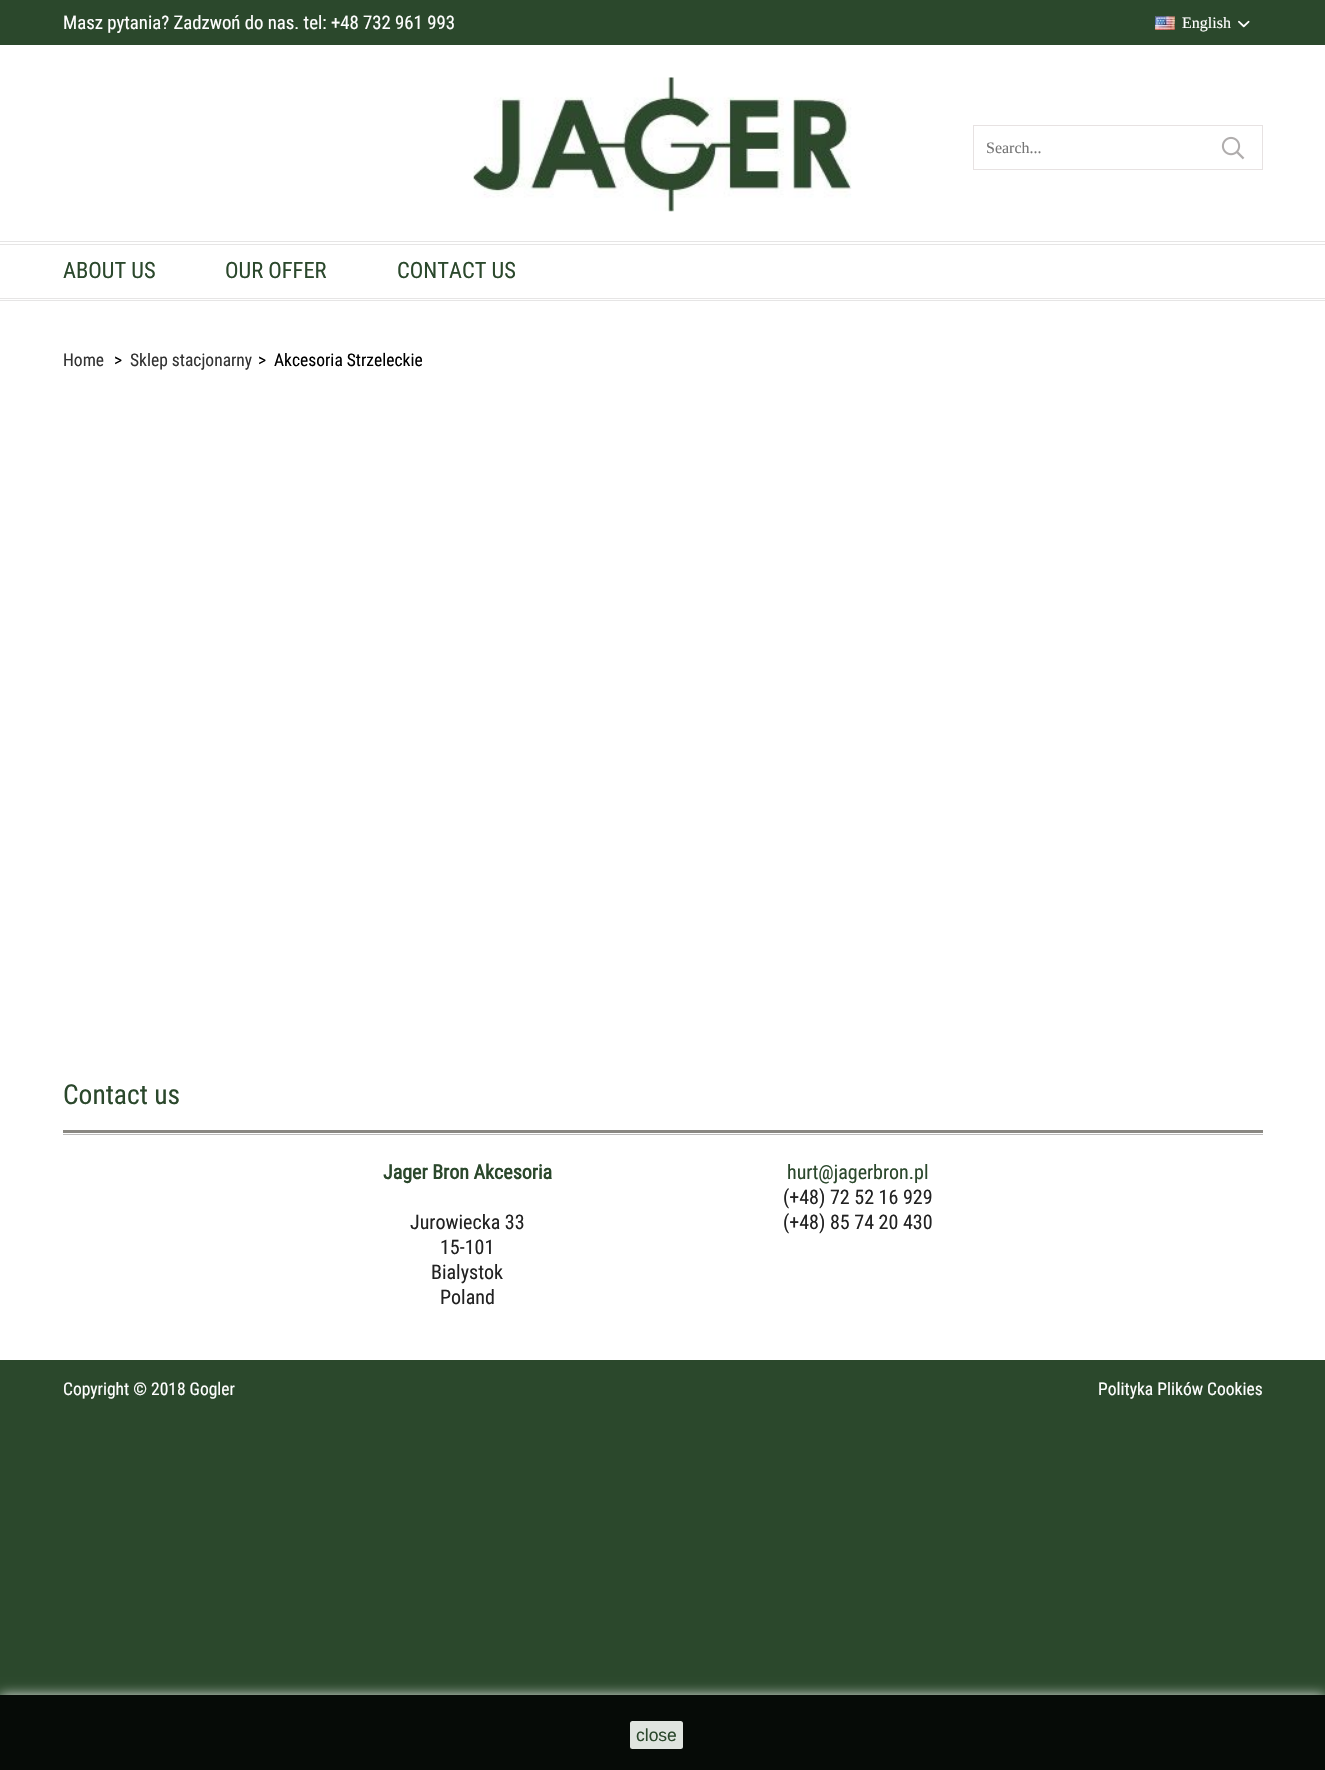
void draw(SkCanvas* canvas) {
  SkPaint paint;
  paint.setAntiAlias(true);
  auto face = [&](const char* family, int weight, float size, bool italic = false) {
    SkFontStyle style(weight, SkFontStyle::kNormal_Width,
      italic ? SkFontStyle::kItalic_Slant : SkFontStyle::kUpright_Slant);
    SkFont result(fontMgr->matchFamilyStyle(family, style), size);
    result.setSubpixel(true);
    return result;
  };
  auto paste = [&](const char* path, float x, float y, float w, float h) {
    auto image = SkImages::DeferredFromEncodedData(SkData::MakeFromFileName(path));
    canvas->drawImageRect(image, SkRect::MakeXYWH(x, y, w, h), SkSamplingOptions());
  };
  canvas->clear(0xff2b482c);
  paint.setColor(0xffffffff);
  canvas->drawRect(SkRect::MakeXYWH(0, 45, 1325, 1315), paint);
  paste("img/1.png", 1155, 16, 20, 14);
  paste("img/2.png", 1238, 20, 12, 8);
  paste("img/3.png", 473, 77, 379, 135);
  paint.setStroke(true);
  paint.setStrokeWidth(1);
  paint.setColor(0xffe7e2e2);
  canvas->drawRect(SkRect::MakeXYWH(973.5f, 125.5f, 289, 44), paint);
  paste("img/4.png", 1221, 136, 24, 24);
  paint.setStroke(false);
  {
    const struct { float x, y, w, h; SkColor color; } items[] = {
      {0, 241, 1325, 1, 0xffe6e5e5},
      {0, 300, 1325, 1, 0xffe6e5e5},
      {0, 244, 1325, 1, 0xffe6e5e5},
      {0, 298, 1325, 1, 0xffe6e5e5},
      {63, 1134, 1200, 1, 0xffbdbcbc},
      {63, 1130, 1200, 3, 0xff8a8882},
    };
    for (auto [x, y, w, h, color] : items) {
      paint.setColor(color);
      canvas->drawRect(SkRect::MakeXYWH(x, y, w, h), paint);
    }
  }
  paint.setColor(0xffdfe4df);
  paint.setMaskFilter(SkMaskFilter::MakeBlur(kNormal_SkBlurStyle, 6));
  canvas->drawRect(SkRect::MakeXYWH(0, 1695, 1325, 75), paint);
  paint.setMaskFilter(nullptr);
  paint.setColor(0xff060b07);
  canvas->drawRect(SkRect::MakeXYWH(0, 1695, 1325, 75), paint);
  paint.setColor(0xffdfe4df);
  canvas->drawRoundRect(SkRect::MakeXYWH(630, 1721, 53, 28), 2.5f, 2.5f, paint);
  auto f0 = face("Roboto Condensed", 400, 18.75f);
  paint.setColor(0xffffffff);
  canvas->drawString("Masz pytania? Zadzwoń do nas. tel: +48 732 961 993", 63, 29, f0, paint);
  auto f1 = face("Liberation Serif", 400, 16);
  canvas->drawString("English", 1182, 28, f1, paint);
  paint.setColor(0xff757575);
  canvas->drawString("Search...", 986, 153, f1, paint);
  auto f2 = face("Roboto Condensed", 400, 22.5f);
  paint.setColor(0xff2b482c);
  {
    const struct { const char* s; float x, y; } items[] = {
      {"ABOUT US", 63, 278},
      {"OUR OFFER", 225, 278},
      {"CONTACT US", 397, 278},
    };
    for (auto [s, x, y] : items) {
      canvas->drawString(s, x, y, f2, paint);
    }
  }
  auto f3 = face("Roboto Condensed", 400, 17.5f);
  paint.setColor(0xff333333);
  canvas->drawString("Home", 63, 366, f3, paint);
  paint.setColor(0xff000000);
  canvas->drawString(">", 114, 366, f3, paint);
  paint.setColor(0xff333333);
  canvas->drawString("Sklep stacjonarny", 130, 366, f3, paint);
  paint.setColor(0xff000000);
  canvas->drawString(">", 258, 366, f3, paint);
  canvas->drawString("Akcesoria Strzeleckie", 274, 366, f3, paint);
  auto f4 = face("Roboto Condensed", 400, 27.5f);
  paint.setColor(0xff2b482c);
  canvas->drawString("Contact us", 63, 1104, f4, paint);
  auto f5 = face("Roboto Condensed", 700, 20);
  canvas->drawString("Jager Bron Akcesoria", 383, 1179, f5, paint);
  auto f6 = face("Roboto Condensed", 400, 20);
  paint.setColor(0xff222222);
  {
    const struct { const char* s; float x, y; } items[] = {
      {"Jurowiecka 33", 410, 1229},
      {"15-101", 440, 1254},
      {"Bialystok", 431, 1279},
      {"Poland", 440, 1304},
    };
    for (auto [s, x, y] : items) {
      canvas->drawString(s, x, y, f6, paint);
    }
  }
  paint.setColor(0xff2b482c);
  canvas->drawString("hurt@jagerbron.pl", 787, 1179, f6, paint);
  paint.setColor(0xff222222);
  canvas->drawString("(+48) 72 52 16 929", 783, 1204, f6, paint);
  canvas->drawString("(+48) 85 74 20 430", 783, 1229, f6, paint);
  paint.setColor(0xffffffff);
  canvas->drawString("Copyright © 2018 Gogler", 63, 1395, f3, paint);
  canvas->drawString("Polityka Plików Cookies", 1098, 1395, f3, paint);
  auto f7 = face("Liberation Sans", 400, 17.5f);
  paint.setColor(0xff2b482c);
  canvas->drawString("close", 636, 1741, f7, paint);
}
